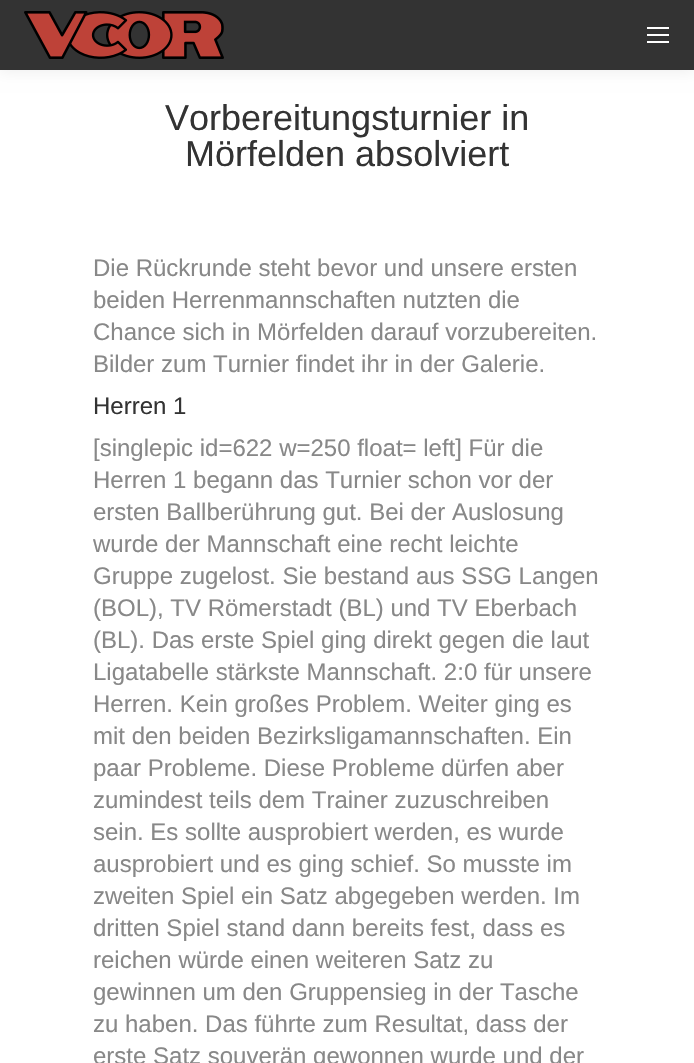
void draw(SkCanvas* canvas) {
  SkPaint paint;
  paint.setAntiAlias(true);
  auto face = [&](const char* family, int weight, float size, bool italic = false) {
    SkFontStyle style(weight, SkFontStyle::kNormal_Width,
      italic ? SkFontStyle::kItalic_Slant : SkFontStyle::kUpright_Slant);
    SkFont result(fontMgr->matchFamilyStyle(family, style), size);
    result.setSubpixel(true);
    return result;
  };
  auto paste = [&](const char* path, float x, float y, float w, float h) {
    auto image = SkImages::DeferredFromEncodedData(SkData::MakeFromFileName(path));
    canvas->drawImageRect(image, SkRect::MakeXYWH(x, y, w, h), SkSamplingOptions());
  };
  canvas->clear(0xffffffff);
  paint.setColor(0x12000000);
  paint.setMaskFilter(SkMaskFilter::MakeBlur(kNormal_SkBlurStyle, 7.5f));
  canvas->drawRect(SkRect::MakeXYWH(-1, -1, 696, 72), paint);
  paint.setMaskFilter(nullptr);
  paint.setColor(0xff333333);
  canvas->drawRect(SkRect::MakeXYWH(0, 0, 694, 70), paint);
  paste("img/1.png", 24, 11, 200, 48);
  {
    const struct { float x, y, w, h; SkColor color; } items[] = {
      {647, 27, 22, 2, 0xffffffff},
      {647, 34, 22, 2, 0xffffffff},
      {647, 41, 22, 2, 0xffffffff},
    };
    for (auto [x, y, w, h, color] : items) {
      paint.setColor(color);
      canvas->drawRect(SkRect::MakeXYWH(x, y, w, h), paint);
    }
  }
  auto f0 = face("Liberation Sans", 400, 36);
  paint.setColor(0xff333333);
  canvas->drawString("Vorbereitungsturnier in", 165, 130, f0, paint);
  canvas->drawString("Mörfelden absolviert", 185, 166, f0, paint);
  auto f1 = face("Liberation Sans", 400, 24);
  paint.setColor(0xff888888);
  {
    const struct { const char* s; float x, y; } items[] = {
      {"Die Rückrunde steht bevor und unsere ersten", 93, 276},
      {"beiden Herrenmannschaften nutzten die", 93, 308},
      {"Chance sich in Mörfelden darauf vorzubereiten.", 93, 340},
      {"Bilder zum Turnier findet ihr in der Galerie.", 93, 372},
    };
    for (auto [s, x, y] : items) {
      canvas->drawString(s, x, y, f1, paint);
    }
  }
  paint.setColor(0xff333333);
  canvas->drawString("Herren 1", 93, 414, f1, paint);
  paint.setColor(0xff888888);
  {
    const struct { const char* s; float x, y; } items[] = {
      {"[singlepic id=622 w=250 float= left] Für die", 93, 456},
      {"Herren 1 begann das Turnier schon vor der", 93, 488},
      {"ersten Ballberührung gut. Bei der Auslosung", 93, 520},
      {"wurde der Mannschaft eine recht leichte", 93, 552},
      {"Gruppe zugelost. Sie bestand aus SSG Langen", 93, 584},
      {"(BOL), TV Römerstadt (BL) und TV Eberbach", 93, 616},
      {"(BL). Das erste Spiel ging direkt gegen die laut", 93, 648},
      {"Ligatabelle stärkste Mannschaft. 2:0 für unsere", 93, 680},
      {"Herren. Kein großes Problem. Weiter ging es", 93, 712},
      {"mit den beiden Bezirksligamannschaften. Ein", 93, 744},
      {"paar Probleme. Diese Probleme dürfen aber", 93, 776},
      {"zumindest teils dem Trainer zuzuschreiben", 93, 808},
      {"sein. Es sollte ausprobiert werden, es wurde", 93, 840},
      {"ausprobiert und es ging schief. So musste im", 93, 872},
      {"zweiten Spiel ein Satz abgegeben werden. Im", 93, 904},
      {"dritten Spiel stand dann bereits fest, dass es", 93, 936},
      {"reichen würde einen weiteren Satz zu", 93, 968},
      {"gewinnen um den Gruppensieg in der Tasche", 93, 1000},
      {"zu haben. Das führte zum Resultat, dass der", 93, 1032},
      {"erste Satz souverän gewonnen wurde und der", 93, 1064},
    };
    for (auto [s, x, y] : items) {
      canvas->drawString(s, x, y, f1, paint);
    }
  }
}
